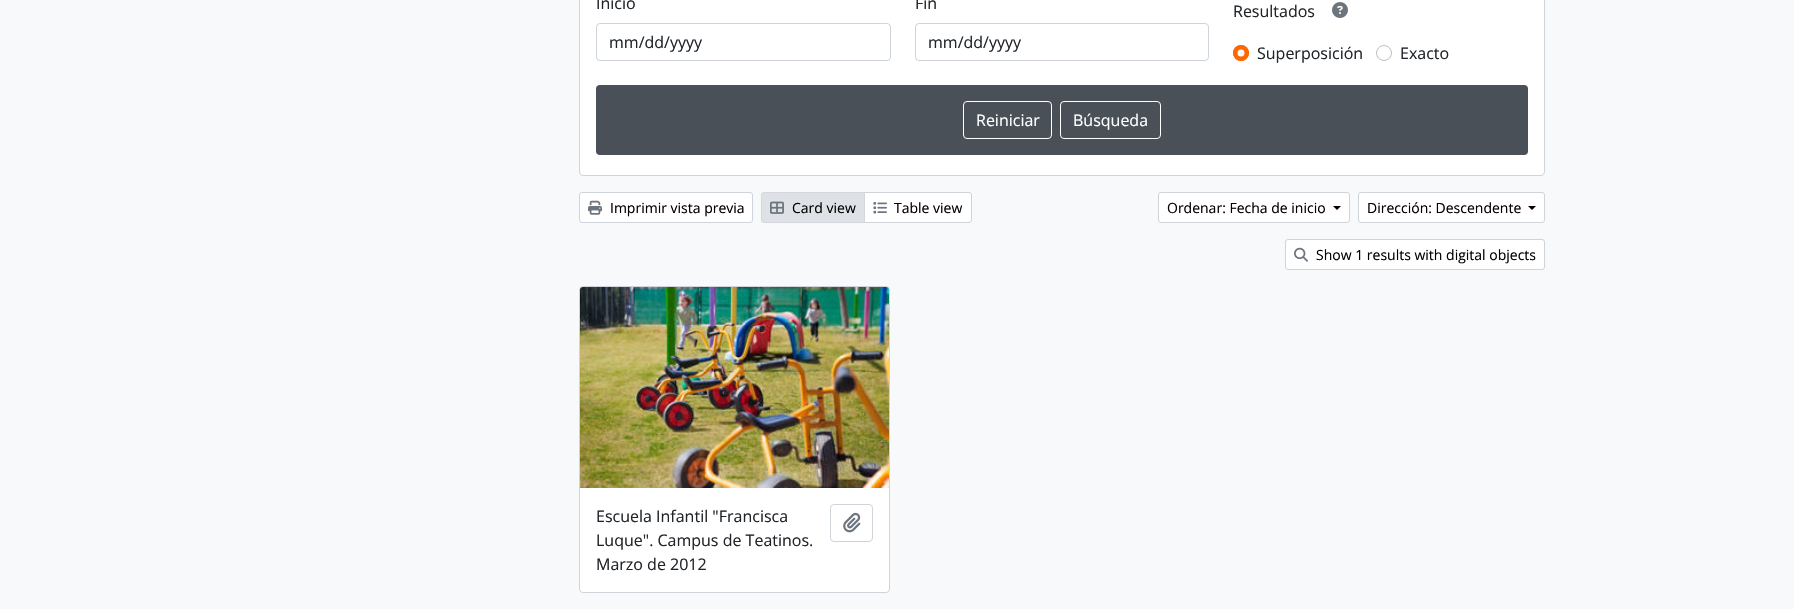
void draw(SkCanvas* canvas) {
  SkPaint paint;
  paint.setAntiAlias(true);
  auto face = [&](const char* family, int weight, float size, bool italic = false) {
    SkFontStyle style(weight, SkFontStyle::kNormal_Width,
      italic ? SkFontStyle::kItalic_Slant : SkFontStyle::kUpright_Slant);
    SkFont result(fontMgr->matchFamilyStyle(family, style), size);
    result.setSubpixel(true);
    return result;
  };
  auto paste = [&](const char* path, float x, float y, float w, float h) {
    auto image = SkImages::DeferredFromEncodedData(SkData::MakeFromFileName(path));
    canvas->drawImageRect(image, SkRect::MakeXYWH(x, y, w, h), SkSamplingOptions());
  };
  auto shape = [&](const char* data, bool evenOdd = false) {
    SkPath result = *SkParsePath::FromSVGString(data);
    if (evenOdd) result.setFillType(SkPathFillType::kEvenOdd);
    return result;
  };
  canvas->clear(0xfff8f9fa);
  paint.setColor(0xffffffff);
  canvas->drawRoundRect(SkRect::MakeXYWH(579.5f, -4.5f, 965, 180), 3.5f, 3.5f, paint);
  paint.setStroke(true);
  paint.setStrokeWidth(1);
  paint.setColor(0xffced4da);
  canvas->drawRoundRect(SkRect::MakeXYWH(579.5f, -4.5f, 965, 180), 3.5f, 3.5f, paint);
  canvas->drawRoundRect(SkRect::MakeXYWH(596.5f, 23.5f, 294, 37), 3.5f, 3.5f, paint);
  canvas->drawRoundRect(SkRect::MakeXYWH(915.5f, 23.5f, 293, 37), 3.5f, 3.5f, paint);
  paste("img/1.png", 1332, 2, 16, 16);
  paint.setStroke(false);
  paint.setColor(0xffff6600);
  canvas->drawCircle(1241, 53, 8, paint);
  paint.setColor(0xffffffff);
  canvas->drawCircle(1241, 53, 3.5f, paint);
  paint.setStroke(true);
  paint.setColor(0xffff6600);
  canvas->drawCircle(1241, 53, 7.5f, paint);
  paint.setColor(0xffbfbfbf);
  canvas->drawCircle(1384, 53, 7.5f, paint);
  paint.setStroke(false);
  paint.setColor(0xff495057);
  canvas->drawRoundRect(SkRect::MakeXYWH(596, 85, 932, 70), 4, 4, paint);
  paint.setStroke(true);
  paint.setColor(0xffffffff);
  canvas->drawRoundRect(SkRect::MakeXYWH(963.5f, 101.5f, 88, 37), 3.5f, 3.5f, paint);
  canvas->drawRoundRect(SkRect::MakeXYWH(1060.5f, 101.5f, 100, 37), 3.5f, 3.5f, paint);
  paint.setStroke(false);
  canvas->drawRoundRect(SkRect::MakeXYWH(579.5f, 192.5f, 173, 30), 2.5f, 2.5f, paint);
  paint.setStroke(true);
  paint.setColor(0xffced4da);
  canvas->drawRoundRect(SkRect::MakeXYWH(579.5f, 192.5f, 173, 30), 2.5f, 2.5f, paint);
  paste("img/2.png", 588, 200, 14, 15);
  paint.setStroke(false);
  paint.setColor(0xffffffff);
  canvas->drawPath(shape("M864.5 192.5H969C970.5 192.5 971.5 193.5 971.5 195V220C971.5 221.5 970.5 222.5 969 222.5H864.5Z"), paint);
  paint.setStroke(true);
  paint.setColor(0xffced4da);
  canvas->drawPath(shape("M864.5 192.5H969C970.5 192.5 971.5 193.5 971.5 195V220C971.5 221.5 970.5 222.5 969 222.5H864.5Z"), paint);
  paint.setStroke(false);
  paint.setColor(0xffdee2e6);
  canvas->drawPath(shape("M764 192.5H864.5V222.5H764C762.5 222.5 761.5 221.5 761.5 220V195C761.5 193.5 762.5 192.5 764 192.5Z"), paint);
  paint.setStroke(true);
  paint.setColor(0xffd3d8de);
  canvas->drawPath(shape("M764 192.5H864.5V222.5H764C762.5 222.5 761.5 221.5 761.5 220V195C761.5 193.5 762.5 192.5 764 192.5Z"), paint);
  paste("img/3.png", 770, 201, 14, 13);
  paste("img/4.png", 873, 202, 14, 12);
  paint.setStroke(false);
  paint.setColor(0xffffffff);
  canvas->drawRoundRect(SkRect::MakeXYWH(1158.5f, 192.5f, 191, 30), 2.5f, 2.5f, paint);
  paint.setStroke(true);
  paint.setColor(0xffced4da);
  canvas->drawRoundRect(SkRect::MakeXYWH(1158.5f, 192.5f, 191, 30), 2.5f, 2.5f, paint);
  paint.setStroke(false);
  paint.setColor(0xff000000);
  canvas->drawPath(shape("M1333 206H1341L1337 210Z"), paint);
  paint.setColor(0xffffffff);
  canvas->drawRoundRect(SkRect::MakeXYWH(1358.5f, 192.5f, 186, 30), 2.5f, 2.5f, paint);
  paint.setStroke(true);
  paint.setColor(0xffced4da);
  canvas->drawRoundRect(SkRect::MakeXYWH(1358.5f, 192.5f, 186, 30), 2.5f, 2.5f, paint);
  paint.setStroke(false);
  paint.setColor(0xff000000);
  canvas->drawPath(shape("M1528 206H1536L1532 210Z"), paint);
  paint.setColor(0xffffffff);
  canvas->drawRoundRect(SkRect::MakeXYWH(1285.5f, 239.5f, 259, 30), 2.5f, 2.5f, paint);
  paint.setStroke(true);
  paint.setColor(0xffced4da);
  canvas->drawRoundRect(SkRect::MakeXYWH(1285.5f, 239.5f, 259, 30), 2.5f, 2.5f, paint);
  paste("img/5.png", 1294, 247, 14, 15);
  paint.setStroke(false);
  paint.setColor(0xffffffff);
  canvas->drawRoundRect(SkRect::MakeXYWH(579.5f, 286.5f, 310, 306), 3.5f, 3.5f, paint);
  paint.setStroke(true);
  paint.setColor(0xffced4da);
  canvas->drawRoundRect(SkRect::MakeXYWH(579.5f, 286.5f, 310, 306), 3.5f, 3.5f, paint);
  paste("img/6.png", 580, 287, 309, 201);
  canvas->drawRoundRect(SkRect::MakeXYWH(830.5f, 504.5f, 42, 37), 3.5f, 3.5f, paint);
  paste("img/7.png", 843, 512, 18, 21);
  auto f0 = face("Open Sans", 400, 16);
  paint.setStroke(false);
  paint.setColor(0xff212529);
  {
    const struct { const char* s; float x, y; } items[] = {
      {"Inicio", 596, 9},
      {"mm/dd/yyyy", 609, 48},
      {"Fin", 915, 9},
      {"mm/dd/yyyy", 928, 48},
      {"Resultados", 1233, 17},
      {"Superposición", 1257, 59},
      {"Exacto", 1400, 59},
    };
    for (auto [s, x, y] : items) {
      canvas->drawString(s, x, y, f0, paint);
    }
  }
  paint.setColor(0xffffffff);
  canvas->drawString("Reiniciar", 976, 126, f0, paint);
  canvas->drawString("Búsqueda", 1073, 126, f0, paint);
  auto f1 = face("Open Sans", 400, 14);
  paint.setColor(0xff000000);
  {
    const struct { const char* s; float x, y; } items[] = {
      {"Imprimir vista previa", 610, 213},
      {"Card view", 792, 213},
      {"Table view", 894, 213},
      {"Ordenar: Fecha de inicio", 1167, 213},
      {"Dirección: Descendente", 1367, 213},
      {"Show 1 results with digital objects", 1316, 260},
    };
    for (auto [s, x, y] : items) {
      canvas->drawString(s, x, y, f1, paint);
    }
  }
  paint.setColor(0xff212529);
  {
    const struct { const char* s; float x, y; } items[] = {
      {"Escuela Infantil \"Francisca", 596, 522},
      {"Luque\". Campus de Teatinos.", 596, 546},
      {"Marzo de 2012", 596, 570},
    };
    for (auto [s, x, y] : items) {
      canvas->drawString(s, x, y, f0, paint);
    }
  }
}
